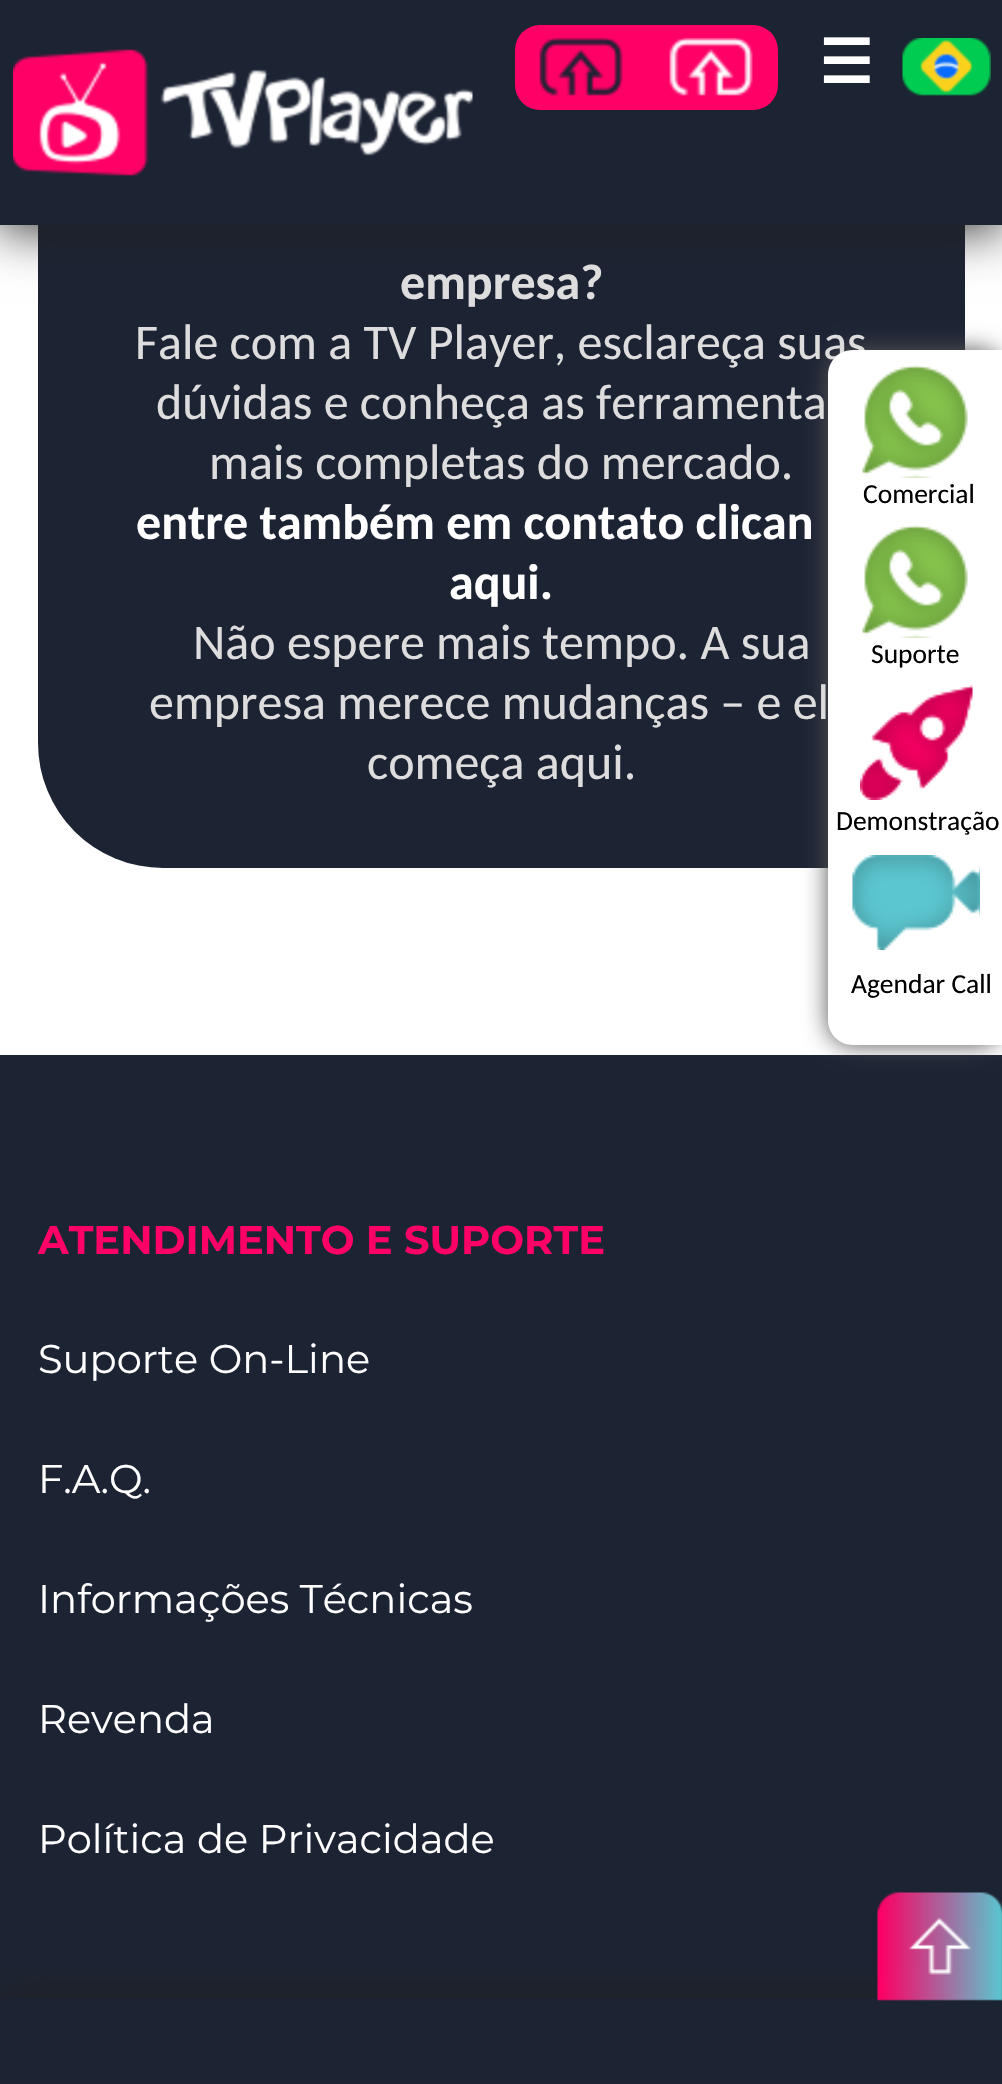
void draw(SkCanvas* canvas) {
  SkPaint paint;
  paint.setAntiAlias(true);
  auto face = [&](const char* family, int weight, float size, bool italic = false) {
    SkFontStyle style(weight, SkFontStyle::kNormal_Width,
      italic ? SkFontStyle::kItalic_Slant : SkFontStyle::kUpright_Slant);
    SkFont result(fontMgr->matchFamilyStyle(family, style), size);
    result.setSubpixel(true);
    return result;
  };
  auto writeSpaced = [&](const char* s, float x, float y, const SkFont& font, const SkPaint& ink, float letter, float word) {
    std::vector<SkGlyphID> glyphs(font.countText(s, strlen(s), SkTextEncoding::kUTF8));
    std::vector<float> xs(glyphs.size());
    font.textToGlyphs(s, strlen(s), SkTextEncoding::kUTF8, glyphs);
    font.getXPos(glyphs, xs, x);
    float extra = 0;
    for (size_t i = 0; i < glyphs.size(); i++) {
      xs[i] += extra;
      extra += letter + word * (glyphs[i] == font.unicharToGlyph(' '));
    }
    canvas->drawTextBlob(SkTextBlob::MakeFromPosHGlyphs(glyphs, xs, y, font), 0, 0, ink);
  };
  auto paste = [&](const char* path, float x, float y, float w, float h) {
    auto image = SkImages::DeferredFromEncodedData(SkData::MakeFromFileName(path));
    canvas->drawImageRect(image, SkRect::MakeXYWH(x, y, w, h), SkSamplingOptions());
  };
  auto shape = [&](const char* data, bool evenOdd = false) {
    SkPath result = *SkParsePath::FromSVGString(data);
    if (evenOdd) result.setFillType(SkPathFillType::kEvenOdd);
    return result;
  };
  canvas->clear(0xffffffff);
  paint.setColor(0xff1c2333);
  canvas->drawRoundRect(SkRect::MakeXYWH(38, -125, 927, 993), 125, 125, paint);
  paint.setColor(0xff202020);
  paint.setMaskFilter(SkMaskFilter::MakeBlur(kNormal_SkBlurStyle, 25));
  canvas->drawRect(SkRect::MakeXYWH(-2, -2, 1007, 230), paint);
  paint.setMaskFilter(nullptr);
  paint.setColor(0xff1c2333);
  canvas->drawRect(SkRect::MakeXYWH(0, 0, 1002, 225), paint);
  paste("img/1.png", 13, 49, 460, 127);
  paint.setColor(0xffff0066);
  canvas->drawRoundRect(SkRect::MakeXYWH(515, 25, 263, 85), 25, 25, paint);
  paste("img/2.png", 539, 38, 84, 58);
  paste("img/3.png", 669, 38, 84, 58);
  paste("img/4.png", 902, 38, 89, 58);
  paint.setColor(0xff1c2333);
  canvas->drawRect(SkRect::MakeXYWH(0, 1055, 1002, 943), paint);
  paint.setColor(0xff555555);
  paint.setMaskFilter(SkMaskFilter::MakeBlur(kNormal_SkBlurStyle, 12.5f));
  canvas->drawRoundRect(SkRect::MakeXYWH(828, 350, 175, 695), 25, 25, paint);
  paint.setMaskFilter(nullptr);
  paint.setColor(0xff202020);
  paint.setMaskFilter(SkMaskFilter::MakeBlur(kNormal_SkBlurStyle, 25));
  canvas->drawRect(SkRect::MakeXYWH(-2, 1995, 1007, 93), paint);
  paint.setMaskFilter(nullptr);
  paint.setColor(0xff1c2333);
  canvas->drawRect(SkRect::MakeXYWH(0, 1998, 1002, 86), paint);
  paste("img/9.png", 877, 1892, 125, 109);
  auto f0 = face("DejaVu Sans", 700, 60);
  paint.setColor(0xffffffff);
  writeSpaced("☰", 819, 83, f0, paint, 2, 0);
  auto f1 = face("Carlito", 700, 50);
  paint.setColor(0xffdddddd);
  canvas->drawString("empresa?", 400, 299, f1, paint);
  auto f2 = face("Carlito", 400, 50);
  {
    const struct { const char* s; float x, y; } items[] = {
      {"Fale com a TV Player, esclareça suas", 135, 359},
      {"dúvidas e conheça as ferramenta", 156, 419},
      {"mais completas do mercado.", 209, 479},
    };
    for (auto [s, x, y] : items) {
      canvas->drawString(s, x, y, f2, paint);
    }
  }
  paint.setColor(0xffffffff);
  canvas->drawString("entre também em contato clican", 136, 539, f1, paint);
  canvas->drawString("aqui.", 449, 599, f1, paint);
  paint.setColor(0xffdddddd);
  {
    const struct { const char* s; float x, y; } items[] = {
      {"Não espere mais tempo. A sua", 193, 659},
      {"empresa merece mudanças – e el", 149, 719},
      {"começa aqui.", 367, 779},
    };
    for (auto [s, x, y] : items) {
      canvas->drawString(s, x, y, f2, paint);
    }
  }
  paint.setColor(0xffffffff);
  canvas->drawPath(shape("M853 350H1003V1045H853C839 1045 828 1034 828 1020V375C828 361 839 350 853 350Z"), paint);
  paste("img/5.png", 862, 365, 106, 113);
  auto f3 = face("Carlito", 400, 27.5f);
  paint.setColor(0xff000000);
  canvas->drawString("Comercial", 863, 503, f3, paint);
  paste("img/6.png", 862, 525, 106, 113);
  canvas->drawString("Suporte", 871, 663, f3, paint);
  paste("img/7.png", 860, 685, 113, 115);
  canvas->drawString("Demonstração", 836, 830, f3, paint);
  paste("img/8.png", 852, 855, 128, 95);
  canvas->drawString("Agendar Call", 851, 993, f3, paint);
  auto f4 = face("Montserrat", 700, 40);
  paint.setColor(0xffff0066);
  canvas->drawString("ATENDIMENTO E SUPORTE", 38, 1254, f4, paint);
  auto f5 = face("Montserrat", 400, 40);
  paint.setColor(0xffffffff);
  {
    const struct { const char* s; float x, y; } items[] = {
      {"Suporte On-Line", 38, 1373},
      {"F.A.Q.", 38, 1493},
      {"Informações Técnicas", 38, 1613},
      {"Revenda", 38, 1733},
      {"Política de Privacidade", 38, 1853},
    };
    for (auto [s, x, y] : items) {
      canvas->drawString(s, x, y, f5, paint);
    }
  }
}
